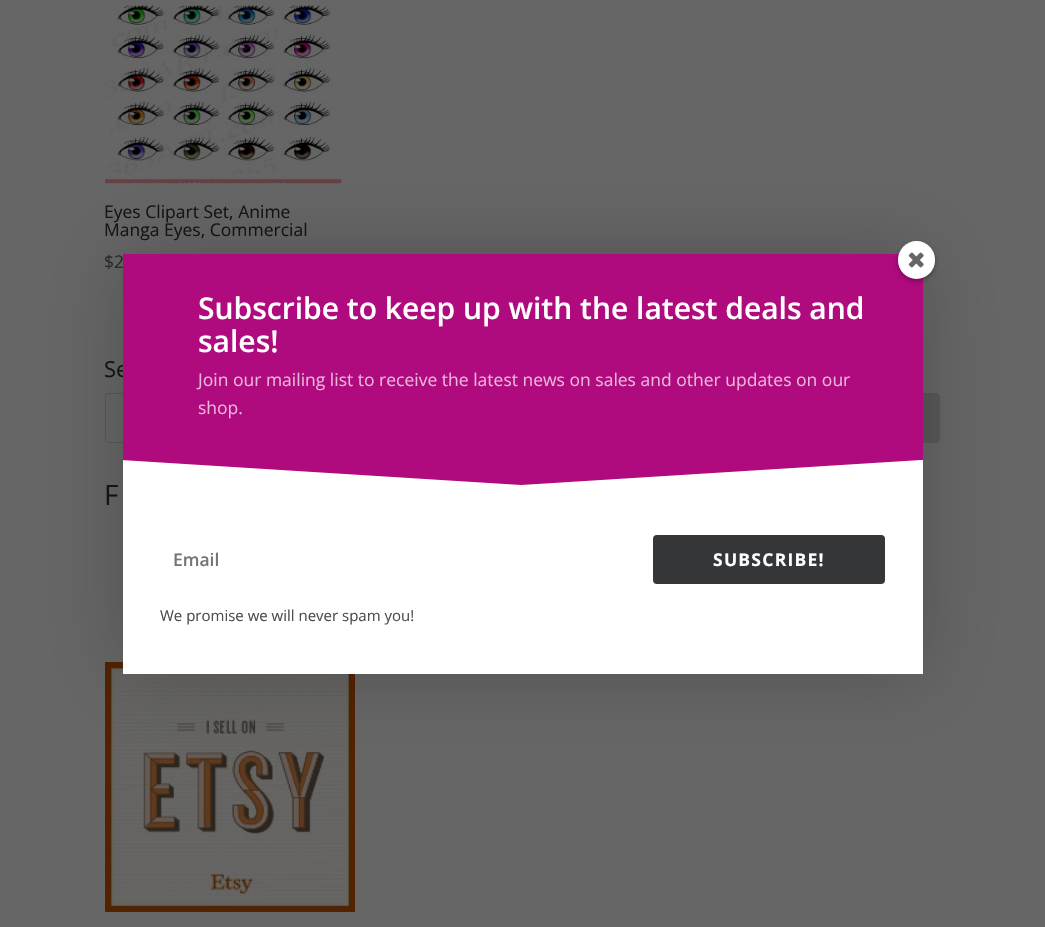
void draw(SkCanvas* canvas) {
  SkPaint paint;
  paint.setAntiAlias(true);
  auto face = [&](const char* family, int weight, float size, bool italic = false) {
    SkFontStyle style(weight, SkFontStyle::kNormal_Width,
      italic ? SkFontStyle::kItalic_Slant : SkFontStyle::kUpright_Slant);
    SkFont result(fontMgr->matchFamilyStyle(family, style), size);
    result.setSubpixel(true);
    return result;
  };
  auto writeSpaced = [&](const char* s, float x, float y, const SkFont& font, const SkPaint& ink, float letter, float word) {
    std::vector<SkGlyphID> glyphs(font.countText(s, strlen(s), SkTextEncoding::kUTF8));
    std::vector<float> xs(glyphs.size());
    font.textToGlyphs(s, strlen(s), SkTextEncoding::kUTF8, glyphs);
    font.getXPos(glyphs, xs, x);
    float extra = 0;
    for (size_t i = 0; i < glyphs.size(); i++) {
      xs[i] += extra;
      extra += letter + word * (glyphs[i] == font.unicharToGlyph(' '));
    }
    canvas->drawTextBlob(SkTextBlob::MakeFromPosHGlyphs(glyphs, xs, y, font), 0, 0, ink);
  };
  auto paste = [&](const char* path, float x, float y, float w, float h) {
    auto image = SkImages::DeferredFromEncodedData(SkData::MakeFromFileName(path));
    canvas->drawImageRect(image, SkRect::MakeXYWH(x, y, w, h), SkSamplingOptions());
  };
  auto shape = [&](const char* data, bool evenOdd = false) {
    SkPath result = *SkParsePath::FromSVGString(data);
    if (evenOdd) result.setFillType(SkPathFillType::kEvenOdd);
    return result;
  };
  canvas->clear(0xff666666);
  paste("img/1.png", 105, 5, 237, 179);
  paint.setStroke(true);
  paint.setStrokeWidth(1);
  paint.setColor(0xff585858);
  canvas->drawRoundRect(SkRect::MakeXYWH(105.5f, 393.5f, 834, 49), 3.5f, 3.5f, paint);
  paint.setStroke(false);
  canvas->drawPath(shape("M858 393H936C938 393 940 395 940 397V439C940 441 938 443 936 443H858Z"), paint);
  paste("img/2.png", 105, 662, 250, 250);
  paint.setColor(0x33000000);
  paint.setMaskFilter(SkMaskFilter::MakeBlur(kNormal_SkBlurStyle, 37.5f));
  canvas->drawRect(SkRect::MakeXYWH(123, 254, 800, 420), paint);
  paint.setMaskFilter(nullptr);
  paint.setColor(0xffffffff);
  canvas->drawRect(SkRect::MakeXYWH(123, 460, 800, 214), paint);
  paint.setColor(0xffaf0a7e);
  canvas->drawPath(shape("M121 460L521 485L921 460Z"), paint);
  paint.setColor(0xff353637);
  canvas->drawRoundRect(SkRect::MakeXYWH(653, 535, 232, 49), 4, 4, paint);
  auto f0 = face("Open Sans", 400, 17.5f);
  paint.setColor(0xff141414);
  canvas->drawString("Eyes Clipart Set, Anime", 104, 218, f0, paint);
  canvas->drawString("Manga Eyes, Commercial", 104, 236, f0, paint);
  paint.setColor(0xff292929);
  canvas->drawString("$2", 104, 268, f0, paint);
  auto f1 = face("Open Sans", 400, 22);
  paint.setColor(0xff141414);
  canvas->drawString("Se", 104, 377, f1, paint);
  auto f2 = face("Open Sans", 400, 28);
  canvas->drawString("F", 104, 505, f2, paint);
  paint.setColor(0xffaf0a7e);
  canvas->drawRect(SkRect::MakeXYWH(123, 254, 800, 206), paint);
  paint.setColor(0x57000000);
  paint.setMaskFilter(SkMaskFilter::MakeBlur(kNormal_SkBlurStyle, 2.5f));
  canvas->drawRoundRect(SkRect::MakeXYWH(898, 244, 37, 37), 18.5f, 18.5f, paint);
  paint.setMaskFilter(nullptr);
  paint.setColor(0xffffffff);
  canvas->drawRoundRect(SkRect::MakeXYWH(898, 241, 37, 38), 18.5f, 18.5f, paint);
  paste("img/3.png", 908, 252, 16, 16);
  auto f3 = face("Open Sans", 600, 30);
  canvas->drawString("Subscribe to keep up with the latest deals and", 198, 319, f3, paint);
  canvas->drawString("sales!", 198, 352, f3, paint);
  paint.setColor(0xffe7b6d8);
  canvas->drawString("Join our mailing list to receive the latest news on sales and other updates on our", 198, 386, f0, paint);
  canvas->drawString("shop.", 198, 414, f0, paint);
  auto f4 = face("Open Sans", 600, 17.5f);
  paint.setColor(0xff757575);
  canvas->drawString("Email", 173, 566, f4, paint);
  auto f5 = face("Open Sans", 700, 17.5f);
  paint.setColor(0xffffffff);
  writeSpaced("SUBSCRIBE!", 713, 566, f5, paint, 1.25f, 0);
  auto f6 = face("Open Sans", 400, 15);
  paint.setColor(0xff4d4d4d);
  canvas->drawString("We promise we will never spam you!", 160, 621, f6, paint);
}
